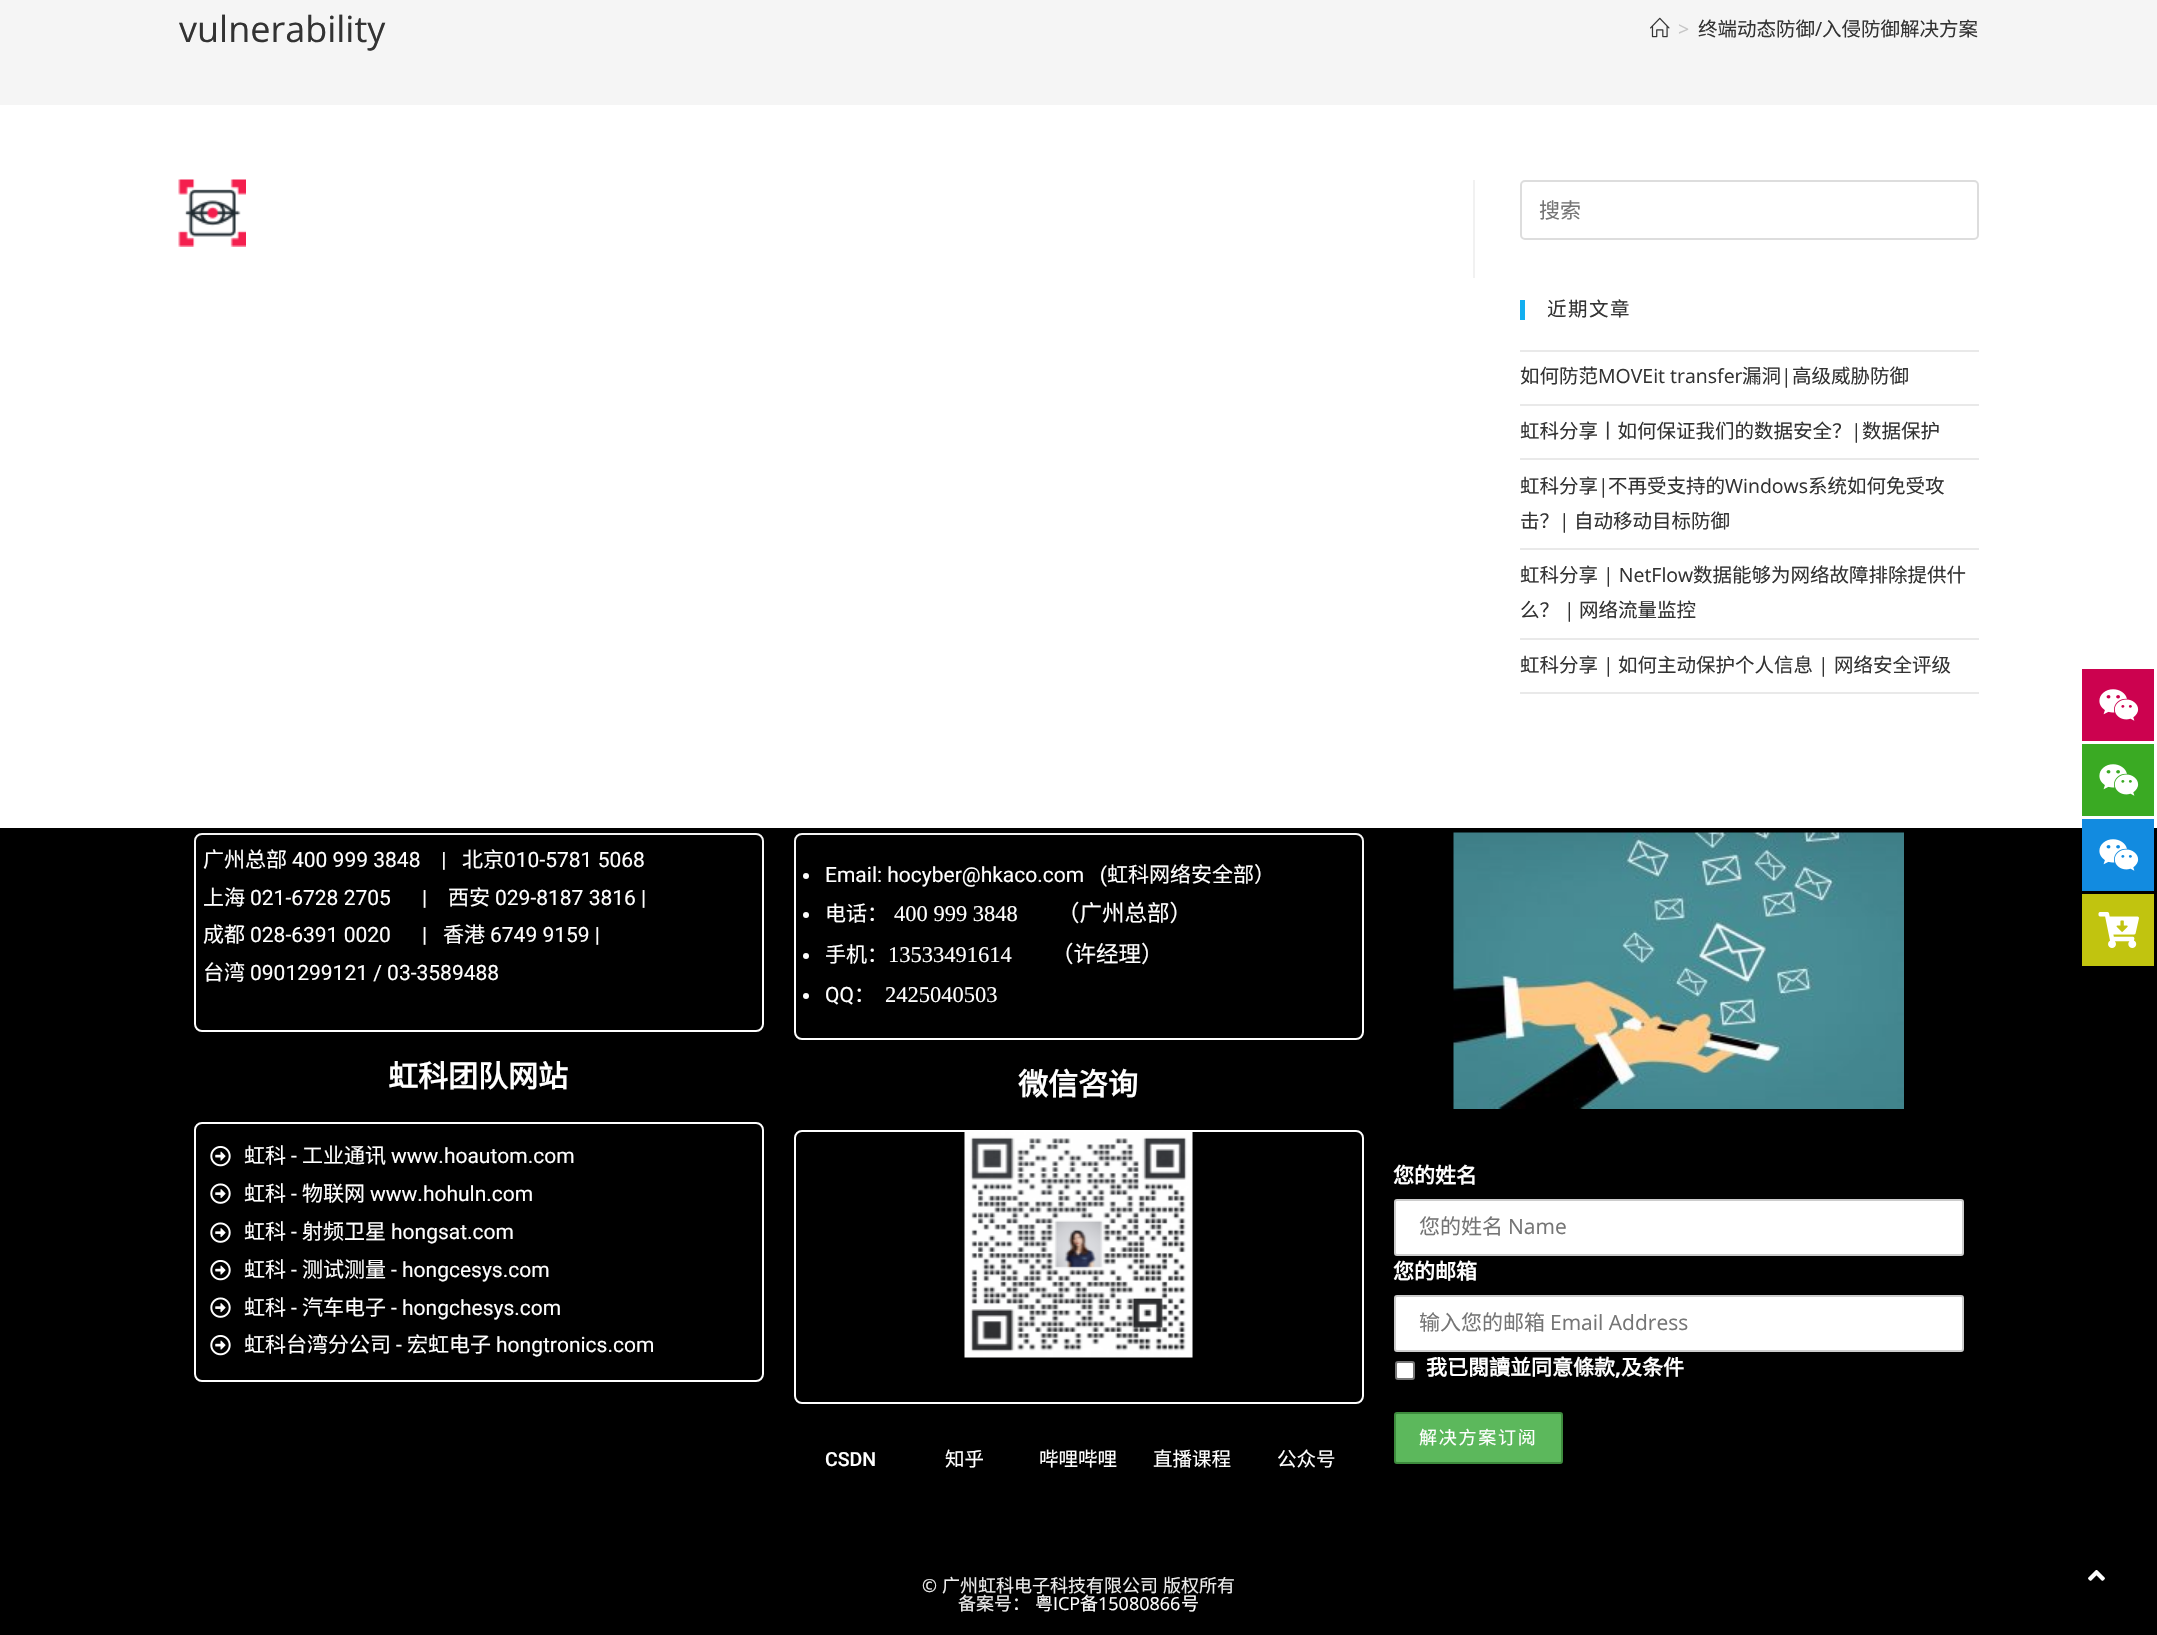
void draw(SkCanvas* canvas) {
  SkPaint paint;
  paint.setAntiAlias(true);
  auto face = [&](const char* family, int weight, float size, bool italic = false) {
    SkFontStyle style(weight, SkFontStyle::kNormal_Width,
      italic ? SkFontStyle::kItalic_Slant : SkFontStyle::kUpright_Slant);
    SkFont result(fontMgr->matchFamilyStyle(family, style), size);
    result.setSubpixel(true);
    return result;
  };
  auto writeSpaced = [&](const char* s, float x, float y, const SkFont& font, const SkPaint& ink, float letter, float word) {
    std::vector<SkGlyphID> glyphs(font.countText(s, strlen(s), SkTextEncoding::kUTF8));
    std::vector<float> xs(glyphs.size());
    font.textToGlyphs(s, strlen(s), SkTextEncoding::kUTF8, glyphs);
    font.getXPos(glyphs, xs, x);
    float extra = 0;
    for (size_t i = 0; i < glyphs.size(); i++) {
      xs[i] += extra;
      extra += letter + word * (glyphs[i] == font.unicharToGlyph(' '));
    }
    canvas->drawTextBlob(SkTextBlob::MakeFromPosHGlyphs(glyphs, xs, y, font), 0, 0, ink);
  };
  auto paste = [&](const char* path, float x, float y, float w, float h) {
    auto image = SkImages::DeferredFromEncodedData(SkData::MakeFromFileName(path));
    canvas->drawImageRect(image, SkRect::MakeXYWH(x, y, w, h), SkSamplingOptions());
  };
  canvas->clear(0xff000000);
  paint.setStroke(true);
  paint.setStrokeWidth(2);
  paint.setColor(0xffffffff);
  canvas->drawRoundRect(SkRect::MakeXYWH(195, 834, 568, 197), 7, 7, paint);
  canvas->drawRoundRect(SkRect::MakeXYWH(795, 834, 568, 205), 7, 7, paint);
  paint.setStroke(false);
  canvas->drawCircle(806, 876, 3, paint);
  canvas->drawCircle(806, 915, 3, paint);
  paste("img/6.png", 1453, 832, 451, 277);
  paint.setColor(0x1a000000);
  paint.setMaskFilter(SkMaskFilter::MakeBlur(kNormal_SkBlurStyle, 30));
  canvas->drawRect(SkRect::MakeXYWH(0, -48, 2157, 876), paint);
  paint.setMaskFilter(nullptr);
  paint.setColor(0xffffffff);
  canvas->drawRect(SkRect::MakeXYWH(0, 105, 2157, 723), paint);
  paint.setColor(0xfff5f5f5);
  canvas->drawRect(SkRect::MakeXYWH(0, 0, 2157, 105), paint);
  paste("img/1.png", 1650, 17, 20, 21);
  paint.setColor(0xfff1f1f1);
  canvas->drawRect(SkRect::MakeXYWH(1473, 180, 2, 98), paint);
  paste("img/2.png", 178, 179, 68, 68);
  paint.setStroke(true);
  paint.setColor(0xffdddddd);
  canvas->drawRoundRect(SkRect::MakeXYWH(1521, 181, 457, 58), 4, 4, paint);
  paint.setStroke(false);
  {
    const struct { float x, y, w, h; SkColor color; } items[] = {
      {1520, 300, 5, 20, 0xff13aff0},
      {1520, 350, 459, 2, 0xffe9e9e9},
      {1520, 404, 459, 2, 0xffe9e9e9},
      {1520, 458, 459, 2, 0xffe9e9e9},
      {1520, 548, 459, 2, 0xffe9e9e9},
      {1520, 638, 459, 2, 0xffe9e9e9},
      {1520, 692, 459, 2, 0xffe9e9e9},
    };
    for (auto [x, y, w, h, color] : items) {
      paint.setColor(color);
      canvas->drawRect(SkRect::MakeXYWH(x, y, w, h), paint);
    }
  }
  paint.setStroke(true);
  paint.setColor(0xffffffff);
  canvas->drawRoundRect(SkRect::MakeXYWH(195, 1123, 568, 258), 7, 7, paint);
  paste("img/3.png", 210, 1146, 21, 21);
  paste("img/4.png", 210, 1183, 21, 21);
  paste("img/4.png", 210, 1222, 21, 21);
  paste("img/3.png", 210, 1260, 21, 21);
  paste("img/4.png", 210, 1297, 21, 21);
  paste("img/3.png", 210, 1335, 21, 21);
  paint.setStroke(false);
  canvas->drawCircle(806, 956, 3, paint);
  canvas->drawCircle(806, 996, 3, paint);
  paint.setStroke(true);
  canvas->drawRoundRect(SkRect::MakeXYWH(795, 1131, 568, 272), 7, 7, paint);
  paste("img/5.png", 964, 1132, 229, 226);
  paint.setStroke(false);
  canvas->drawRoundRect(SkRect::MakeXYWH(1395, 1200, 568, 55), 2, 2, paint);
  paint.setStroke(true);
  paint.setColor(0xffcccccc);
  canvas->drawRoundRect(SkRect::MakeXYWH(1395, 1200, 568, 55), 2, 2, paint);
  paint.setStroke(false);
  paint.setColor(0xffffffff);
  canvas->drawRoundRect(SkRect::MakeXYWH(1395, 1296, 568, 55), 2, 2, paint);
  paint.setStroke(true);
  paint.setColor(0xffcccccc);
  canvas->drawRoundRect(SkRect::MakeXYWH(1395, 1296, 568, 55), 2, 2, paint);
  paint.setStroke(false);
  paint.setColor(0xffffffff);
  canvas->drawRoundRect(SkRect::MakeXYWH(1396, 1362, 18, 17), 2, 2, paint);
  paint.setStroke(true);
  paint.setColor(0xff767676);
  canvas->drawRoundRect(SkRect::MakeXYWH(1396, 1362, 18, 17), 2, 2, paint);
  paint.setStroke(false);
  paint.setColor(0xff5cb85c);
  canvas->drawRoundRect(SkRect::MakeXYWH(1395, 1413, 167, 50), 2, 2, paint);
  paint.setStroke(true);
  paint.setColor(0xff3d8b3d);
  canvas->drawRoundRect(SkRect::MakeXYWH(1395, 1413, 167, 50), 2, 2, paint);
  paint.setStroke(false);
  paint.setColor(0xffcc024f);
  canvas->drawRect(SkRect::MakeXYWH(2082, 669, 72, 72), paint);
  paste("img/7.png", 2099, 689, 40, 32);
  paint.setColor(0xff3aaa23);
  canvas->drawRect(SkRect::MakeXYWH(2082, 744, 72, 72), paint);
  paste("img/8.png", 2099, 764, 40, 32);
  paint.setColor(0xff128be0);
  canvas->drawRect(SkRect::MakeXYWH(2082, 819, 72, 72), paint);
  paste("img/9.png", 2099, 839, 40, 32);
  paint.setColor(0xffc1c40f);
  canvas->drawRect(SkRect::MakeXYWH(2082, 894, 72, 72), paint);
  paste("img/10.png", 2098, 912, 41, 36);
  paste("img/11.png", 2088, 1570, 17, 11);
  auto f0 = face("Open Sans", 400, 36);
  paint.setColor(0xff333333);
  canvas->drawString("vulnerability", 179, 42, f0, paint);
  auto f1 = face("Open Sans", 400, 19.5f);
  paint.setColor(0xffc6c6c6);
  canvas->drawString(">", 1678, 36, f1, paint);
  auto f2 = face("Noto Sans CJK SC", 400, 19.5f);
  paint.setColor(0xff333333);
  canvas->drawString("终端动态防御", 1698, 36, f2, paint);
  canvas->drawString("/", 1815, 36, f1, paint);
  canvas->drawString("入侵防御解决方案", 1822, 36, f2, paint);
  auto f3 = face("Noto Sans CJK SC", 400, 21);
  paint.setColor(0xff757575);
  canvas->drawString("搜索", 1539, 218, f3, paint);
  paint.setColor(0xff333333);
  writeSpaced("近期文章", 1547, 316, f2, paint, 1.5f, 0);
  canvas->drawString("如何防范", 1520, 383, f2, paint);
  canvas->drawString("MOVEit transfer", 1598, 383, f1, paint);
  canvas->drawString("漏洞", 1742, 383, f2, paint);
  canvas->drawString("|", 1781, 383, f1, paint);
  canvas->drawString("高级威胁防御", 1792, 383, f2, paint);
  canvas->drawString("虹科分享丨如何保证我们的数据安全？", 1520, 438, f2, paint);
  canvas->drawString("|", 1851, 438, f1, paint);
  canvas->drawString("数据保护", 1862, 438, f2, paint);
  canvas->drawString("虹科分享", 1520, 493, f2, paint);
  canvas->drawString("|", 1598, 493, f1, paint);
  canvas->drawString("不再受支持的", 1608, 493, f2, paint);
  canvas->drawString("Windows", 1725, 493, f1, paint);
  canvas->drawString("系统如何免受攻", 1808, 493, f2, paint);
  canvas->drawString("击？", 1520, 528, f2, paint);
  canvas->drawString("|", 1559, 528, f1, paint);
  canvas->drawString("自动移动目标防御", 1574, 528, f2, paint);
  canvas->drawString("虹科分享", 1520, 582, f2, paint);
  canvas->drawString("| NetFlow", 1603, 582, f1, paint);
  canvas->drawString("数据能够为网络故障排除提供什", 1693, 582, f2, paint);
  canvas->drawString("么？", 1520, 617, f2, paint);
  canvas->drawString("|", 1564, 617, f1, paint);
  canvas->drawString("网络流量监控", 1579, 617, f2, paint);
  canvas->drawString("虹科分享", 1520, 672, f2, paint);
  canvas->drawString("|", 1603, 672, f1, paint);
  canvas->drawString("如何主动保护个人信息", 1618, 672, f2, paint);
  canvas->drawString("|", 1818, 672, f1, paint);
  canvas->drawString("网络安全评级", 1834, 672, f2, paint);
  paint.setColor(0xffffffff);
  canvas->drawString("广州总部", 203, 867, f3, paint);
  auto f4 = face("Roboto", 400, 21);
  canvas->drawString("400 999 3848    |", 292, 867, f4, paint);
  canvas->drawString("北京", 462, 867, f3, paint);
  canvas->drawString("010-5781 5068", 504, 867, f4, paint);
  canvas->drawString("上海", 203, 905, f3, paint);
  canvas->drawString("021-6728 2705      |", 250, 905, f4, paint);
  canvas->drawString("西安", 448, 905, f3, paint);
  canvas->drawString("029-8187 3816 |", 495, 905, f4, paint);
  canvas->drawString("成都", 203, 942, f3, paint);
  canvas->drawString("028-6391 0020      |", 250, 942, f4, paint);
  canvas->drawString("香港", 443, 942, f3, paint);
  canvas->drawString("6749 9159 |", 490, 942, f4, paint);
  canvas->drawString("台湾", 203, 980, f3, paint);
  canvas->drawString("0901299121 / 03-3589488", 250, 980, f4, paint);
  auto f5 = face("Noto Sans CJK SC", 700, 30);
  canvas->drawString("虹科团队网站", 388, 1087, f5, paint);
  canvas->drawString("虹科", 244, 1163, f3, paint);
  canvas->drawString("-", 291, 1163, f4, paint);
  canvas->drawString("工业通讯", 302, 1163, f3, paint);
  canvas->drawString("www.hoautom.com", 391, 1163, f4, paint);
  canvas->drawString("虹科", 244, 1201, f3, paint);
  canvas->drawString("-", 291, 1201, f4, paint);
  canvas->drawString("物联网", 302, 1201, f3, paint);
  canvas->drawString("www.hohuln.com", 370, 1201, f4, paint);
  canvas->drawString("虹科", 244, 1239, f3, paint);
  canvas->drawString("-", 291, 1239, f4, paint);
  canvas->drawString("射频卫星", 302, 1239, f3, paint);
  canvas->drawString("hongsat.com", 391, 1239, f4, paint);
  canvas->drawString("虹科", 244, 1277, f3, paint);
  canvas->drawString("-", 291, 1277, f4, paint);
  canvas->drawString("测试测量", 302, 1277, f3, paint);
  canvas->drawString("- hongcesys.com", 391, 1277, f4, paint);
  canvas->drawString("虹科", 244, 1315, f3, paint);
  canvas->drawString("-", 291, 1315, f4, paint);
  canvas->drawString("汽车电子", 302, 1315, f3, paint);
  canvas->drawString("- hongchesys.com", 391, 1315, f4, paint);
  canvas->drawString("虹科台湾分公司", 244, 1352, f3, paint);
  canvas->drawString("-", 396, 1352, f4, paint);
  canvas->drawString("宏虹电子", 407, 1352, f3, paint);
  canvas->drawString("hongtronics.com", 496, 1352, f4, paint);
  canvas->drawString("Email: hocyber@hkaco.com   (", 825, 882, f4, paint);
  canvas->drawString("虹科网络安全部）", 1107, 882, f3, paint);
  canvas->drawString("电话：", 825, 921, f3, paint);
  auto f6 = face("Liberation Serif", 400, 22.5f);
  canvas->drawString("400 999 3848", 894, 921, f6, paint);
  auto f7 = face("Noto Sans CJK SC", 400, 22.5f);
  canvas->drawString("（广州总部）", 1057, 921, f7, paint);
  canvas->drawString("手机：", 825, 962, f3, paint);
  canvas->drawString("13533491614", 888, 962, f6, paint);
  canvas->drawString("（许经理）", 1051, 962, f7, paint);
  canvas->drawString("QQ", 825, 1002, f4, paint);
  canvas->drawString("：", 854, 1002, f3, paint);
  canvas->drawString("2425040503", 885, 1002, f6, paint);
  canvas->drawString("微信咨询", 1018, 1095, f5, paint);
  auto f8 = face("Roboto", 500, 19.5f);
  canvas->drawString("CSDN", 825, 1466, f8, paint);
  {
    const struct { const char* s; float x, y; } items[] = {
      {"知乎", 945, 1466},
      {"哔哩哔哩", 1039, 1466},
      {"直播课程", 1153, 1466},
      {"公众号", 1277, 1466},
    };
    for (auto [s, x, y] : items) {
      canvas->drawString(s, x, y, f2, paint);
    }
  }
  auto f9 = face("Noto Sans CJK SC", 700, 21);
  canvas->drawString("您的姓名", 1393, 1183, f9, paint);
  paint.setColor(0xff757575);
  canvas->drawString("您的姓名", 1419, 1234, f3, paint);
  auto f10 = face("Open Sans", 400, 21);
  canvas->drawString("Name", 1508, 1234, f10, paint);
  paint.setColor(0xffffffff);
  canvas->drawString("您的邮箱", 1393, 1279, f9, paint);
  paint.setColor(0xff757575);
  canvas->drawString("输入您的邮箱", 1419, 1330, f3, paint);
  canvas->drawString("Email Address", 1550, 1330, f10, paint);
  paint.setColor(0xffffffff);
  canvas->drawString("我已閱讀並同意條款", 1426, 1375, f9, paint);
  auto f11 = face("Open Sans", 700, 21);
  canvas->drawString(",", 1615, 1375, f11, paint);
  canvas->drawString("及条件", 1621, 1375, f9, paint);
  auto f12 = face("Noto Sans CJK SC", 400, 18);
  writeSpaced("解决方案订阅", 1419, 1444, f12, paint, 1.75f, 0);
  auto f13 = face("Open Sans", 400, 18);
  paint.setColor(0xffededed);
  canvas->drawString("©", 922, 1592, f13, paint);
  {
    const struct { const char* s; float x, y; } items[] = {
      {"广州虹科电子科技有限公司", 942, 1592},
      {"版权所有", 1163, 1592},
      {"备案号：", 958, 1610},
    };
    for (auto [s, x, y] : items) {
      canvas->drawString(s, x, y, f12, paint);
    }
  }
  paint.setColor(0xffffffff);
  canvas->drawString("粤", 1035, 1610, f12, paint);
  canvas->drawString("ICP", 1053, 1610, f13, paint);
  canvas->drawString("备", 1080, 1610, f12, paint);
  canvas->drawString("15080866", 1098, 1610, f13, paint);
  canvas->drawString("号", 1181, 1610, f12, paint);
}
